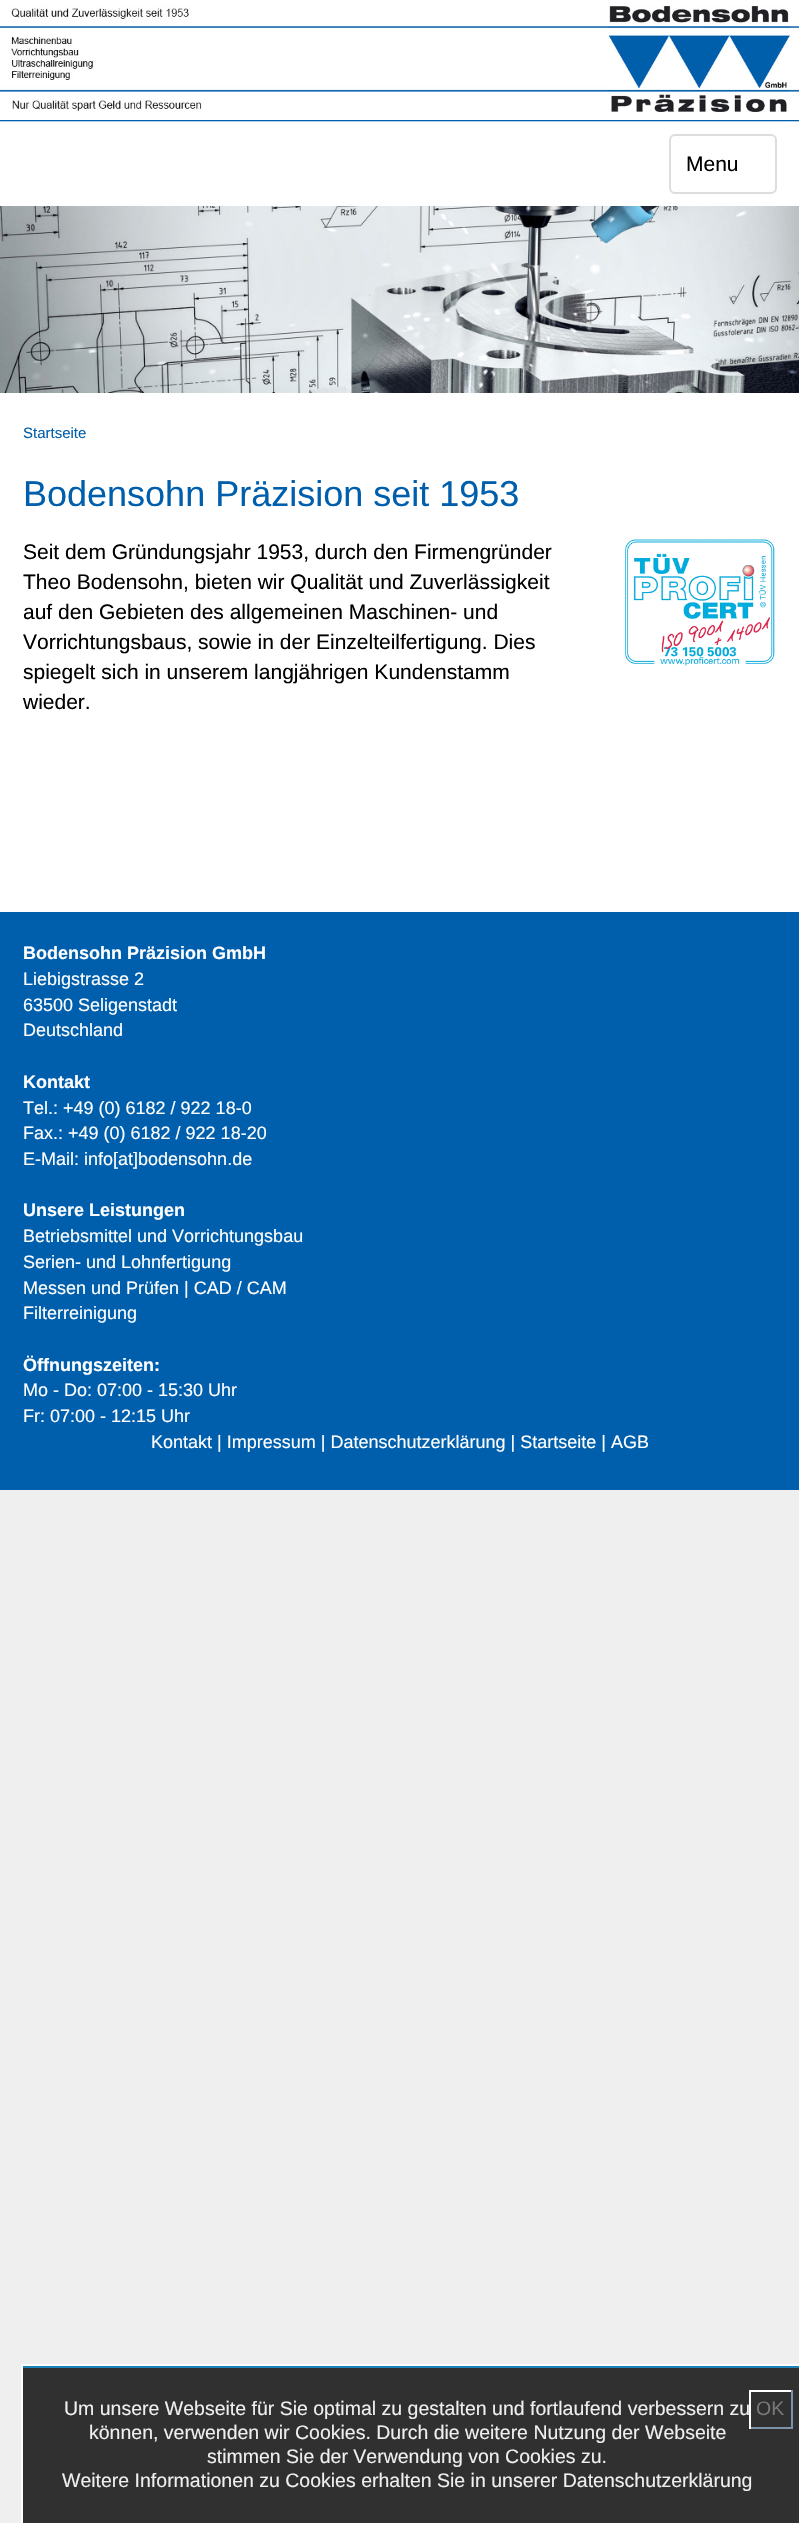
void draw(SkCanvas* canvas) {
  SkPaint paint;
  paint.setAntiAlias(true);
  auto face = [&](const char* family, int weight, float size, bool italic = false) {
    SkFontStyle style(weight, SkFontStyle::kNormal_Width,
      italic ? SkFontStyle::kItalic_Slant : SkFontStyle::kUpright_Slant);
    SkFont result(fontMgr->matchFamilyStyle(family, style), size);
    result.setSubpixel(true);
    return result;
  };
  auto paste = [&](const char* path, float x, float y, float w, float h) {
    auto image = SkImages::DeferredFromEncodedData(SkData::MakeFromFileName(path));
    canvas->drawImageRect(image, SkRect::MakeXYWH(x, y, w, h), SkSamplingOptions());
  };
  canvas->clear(0xffefefef);
  paint.setColor(0xff005fac);
  canvas->drawRect(SkRect::MakeXYWH(0, 120, 799, 1), paint);
  paint.setColor(0xffb3cfe6);
  canvas->drawRect(SkRect::MakeXYWH(0, 121, 799, 1), paint);
  paste("img/1.png", 0, 0, 799, 120);
  paint.setColor(0xffffffff);
  canvas->drawRect(SkRect::MakeXYWH(0, 122, 799, 84), paint);
  paint.setStroke(true);
  paint.setStrokeWidth(2);
  paint.setColor(0xffdddddd);
  canvas->drawRoundRect(SkRect::MakeXYWH(670, 135, 106, 58), 5, 5, paint);
  paste("img/2.png", 0, 206, 799, 187);
  paint.setStroke(false);
  paint.setColor(0xffffffff);
  canvas->drawRect(SkRect::MakeXYWH(0, 393, 799, 519), paint);
  paste("img/3.png", 625, 539, 150, 127);
  {
    const struct { float x, y, w, h; SkColor color; } items[] = {
      {0, 912, 799, 578, 0xff005fac},
      {23, 2368, 776, 155, 0xff303030},
      {23, 2366, 776, 2, 0xff1c84b9},
    };
    for (auto [x, y, w, h, color] : items) {
      paint.setColor(color);
      canvas->drawRect(SkRect::MakeXYWH(x, y, w, h), paint);
    }
  }
  paint.setStroke(true);
  paint.setColor(0xffffffff);
  canvas->drawRect(SkRect::MakeXYWH(22, 2365, 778, 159), paint);
  paint.setStroke(false);
  {
    const struct { float x, y, w, h; SkColor color; } items[] = {
      {749, 2390, 43, 2, 0xffffffff},
      {791, 2390, 2, 39, 0xff7b92a9},
      {749, 2427, 43, 2, 0xff7b92a9},
      {749, 2390, 2, 39, 0xffffffff},
    };
    for (auto [x, y, w, h, color] : items) {
      paint.setColor(color);
      canvas->drawRect(SkRect::MakeXYWH(x, y, w, h), paint);
    }
  }
  auto f0 = face("Liberation Sans", 400, 21);
  paint.setColor(0xff000000);
  canvas->drawString("Menu", 686, 171, f0, paint);
  auto f1 = face("Liberation Sans", 400, 15);
  paint.setColor(0xff005fac);
  canvas->drawString("Startseite", 23, 438, f1, paint);
  auto f2 = face("Liberation Sans", 400, 36);
  canvas->drawString("Bodensohn Präzision seit 1953", 23, 506, f2, paint);
  paint.setColor(0xff000000);
  {
    const struct { const char* s; float x, y; } items[] = {
      {"Seit dem Gründungsjahr 1953, durch den Firmengründer", 23, 559},
      {"Theo Bodensohn, bieten wir Qualität und Zuverlässigkeit", 23, 589},
      {"auf den Gebieten des allgemeinen Maschinen- und", 23, 619},
      {"Vorrichtungsbaus, sowie in der Einzelteilfertigung. Dies", 23, 649},
      {"spiegelt sich in unserem langjährigen Kundenstamm", 23, 679},
      {"wieder.", 23, 709},
    };
    for (auto [s, x, y] : items) {
      canvas->drawString(s, x, y, f0, paint);
    }
  }
  auto f3 = face("Liberation Sans", 700, 18);
  paint.setColor(0xffffffff);
  canvas->drawString("Bodensohn Präzision GmbH", 23, 959, f3, paint);
  auto f4 = face("Liberation Sans", 400, 18);
  {
    const struct { const char* s; float x, y; } items[] = {
      {"Liebigstrasse 2", 23, 985},
      {"63500 Seligenstadt", 23, 1011},
      {"Deutschland", 23, 1036},
    };
    for (auto [s, x, y] : items) {
      canvas->drawString(s, x, y, f4, paint);
    }
  }
  canvas->drawString("Kontakt", 23, 1088, f3, paint);
  {
    const struct { const char* s; float x, y; } items[] = {
      {"Tel.: +49 (0) 6182 / 922 18-0", 23, 1114},
      {"Fax.: +49 (0) 6182 / 922 18-20", 23, 1139},
      {"E-Mail: info[at]bodensohn.de", 23, 1165},
    };
    for (auto [s, x, y] : items) {
      canvas->drawString(s, x, y, f4, paint);
    }
  }
  canvas->drawString("Unsere Leistungen", 23, 1216, f3, paint);
  {
    const struct { const char* s; float x, y; } items[] = {
      {"Betriebsmittel und Vorrichtungsbau", 23, 1242},
      {"Serien- und Lohnfertigung", 23, 1268},
      {"Messen und Prüfen | CAD / CAM", 23, 1294},
      {"Filterreinigung", 23, 1319},
    };
    for (auto [s, x, y] : items) {
      canvas->drawString(s, x, y, f4, paint);
    }
  }
  canvas->drawString("Öffnungszeiten:", 23, 1371, f3, paint);
  {
    const struct { const char* s; float x, y; } items[] = {
      {"Mo - Do: 07:00 - 15:30 Uhr", 23, 1396},
      {"Fr: 07:00 - 12:15 Uhr", 23, 1422},
      {"Kontakt | Impressum | Datenschutzerklärung | Startseite | AGB", 151, 1448},
    };
    for (auto [s, x, y] : items) {
      canvas->drawString(s, x, y, f4, paint);
    }
  }
  auto f5 = face("Liberation Sans", 400, 19.5f);
  paint.setColor(0xffefefef);
  {
    const struct { const char* s; float x, y; } items[] = {
      {"Um unsere Webseite für Sie optimal zu gestalten und fortlaufend verbessern zu", 64, 2415},
      {"können, verwenden wir Cookies. Durch die weitere Nutzung der Webseite", 89, 2439},
      {"stimmen Sie der Verwendung von Cookies zu.", 207, 2463},
      {"Weitere Informationen zu Cookies erhalten Sie in unserer Datenschutzerklärung", 62, 2487},
    };
    for (auto [s, x, y] : items) {
      canvas->drawString(s, x, y, f5, paint);
    }
  }
  paint.setColor(0xff777777);
  canvas->drawString("OK", 756, 2415, f5, paint);
}
